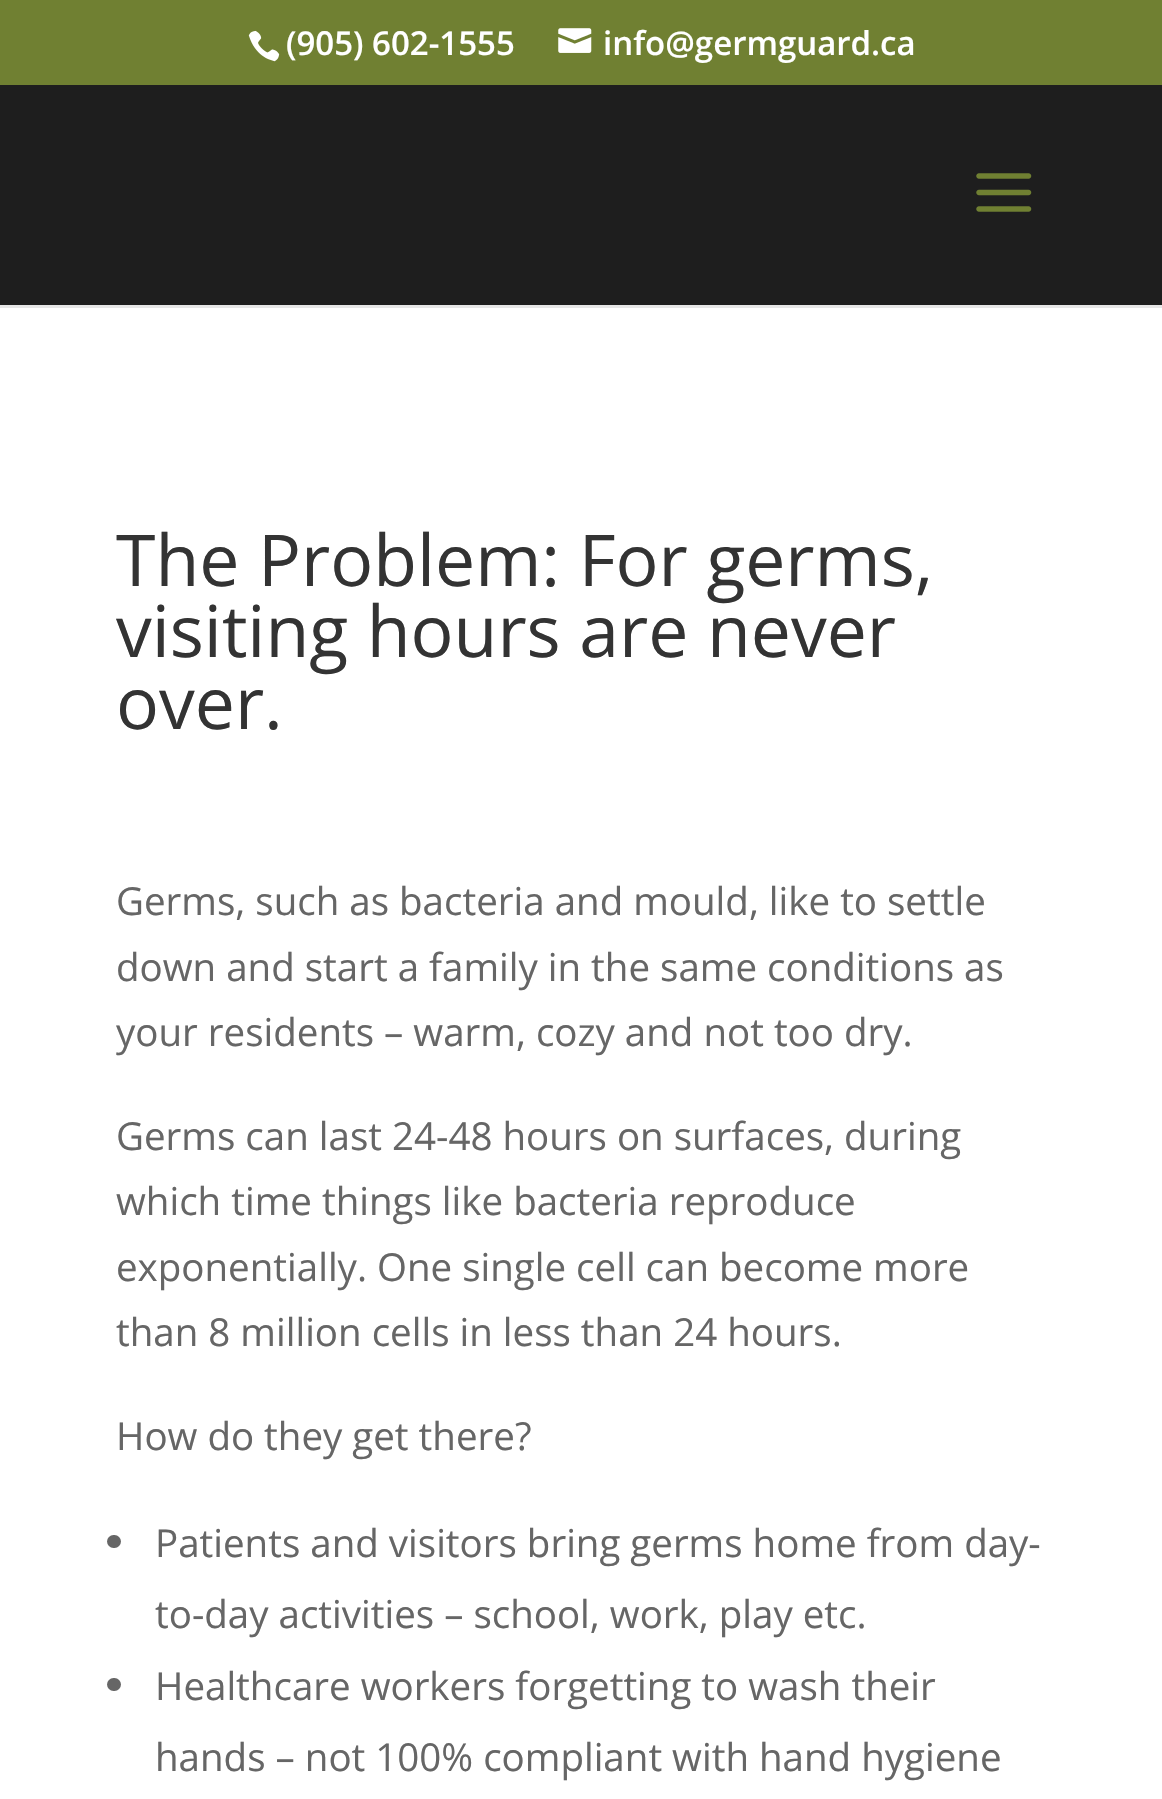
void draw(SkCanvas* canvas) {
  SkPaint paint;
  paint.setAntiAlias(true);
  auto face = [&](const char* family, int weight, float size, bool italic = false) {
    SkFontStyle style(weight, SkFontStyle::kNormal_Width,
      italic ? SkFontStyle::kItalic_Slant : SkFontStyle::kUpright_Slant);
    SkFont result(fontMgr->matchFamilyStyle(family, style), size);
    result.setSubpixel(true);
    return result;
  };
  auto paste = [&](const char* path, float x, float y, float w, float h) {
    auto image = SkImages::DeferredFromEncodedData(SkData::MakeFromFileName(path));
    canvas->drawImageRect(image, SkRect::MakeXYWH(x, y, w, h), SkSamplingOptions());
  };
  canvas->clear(0xffffffff);
  paint.setColor(0xff708032);
  canvas->drawRect(SkRect::MakeXYWH(0, 0, 1162, 85), paint);
  paste("img/1.png", 248, 30, 32, 32);
  paste("img/2.png", 558, 28, 34, 25);
  paint.setColor(0xffe6e6e6);
  canvas->drawRect(SkRect::MakeXYWH(0, 305, 1162, 3), paint);
  paint.setColor(0xff1e1e1e);
  canvas->drawRect(SkRect::MakeXYWH(0, 85, 1162, 220), paint);
  paste("img/3.png", 976, 173, 56, 39);
  paint.setColor(0xff666666);
  canvas->drawRoundRect(SkRect::MakeXYWH(107, 1535, 14, 13), 6.5f, 6.5f, paint);
  canvas->drawRoundRect(SkRect::MakeXYWH(107, 1678, 14, 13), 6.5f, 6.5f, paint);
  auto f0 = face("Open Sans", 600, 33);
  paint.setColor(0xffffffff);
  canvas->drawString("(905) 602-1555", 286, 55, f0, paint);
  canvas->drawString("info@germguard.ca", 603, 55, f0, paint);
  auto f1 = face("Open Sans", 400, 71.5f);
  paint.setColor(0xff333333);
  {
    const struct { const char* s; float x, y; } items[] = {
      {"The Problem: For germs,", 116, 586},
      {"visiting hours are never", 116, 657},
      {"over.", 116, 729},
    };
    for (auto [s, x, y] : items) {
      canvas->drawString(s, x, y, f1, paint);
    }
  }
  auto f2 = face("Open Sans", 400, 38.5f);
  paint.setColor(0xff666666);
  {
    const struct { const char* s; float x, y; } items[] = {
      {"Germs, such as bacteria and mould, like to settle", 116, 915},
      {"down and start a family in the same conditions as", 116, 981},
      {"your residents – warm, cozy and not too dry.", 116, 1046},
      {"Germs can last 24-48 hours on surfaces, during", 116, 1150},
      {"which time things like bacteria reproduce", 116, 1215},
      {"exponentially. One single cell can become more", 116, 1281},
      {"than 8 million cells in less than 24 hours.", 116, 1346},
      {"How do they get there?", 116, 1450},
      {"Patients and visitors bring germs home from day-", 155, 1557},
      {"to-day activities – school, work, play etc.", 155, 1628},
      {"Healthcare workers forgetting to wash their", 155, 1700},
      {"hands – not 100% compliant with hand hygiene", 155, 1771},
    };
    for (auto [s, x, y] : items) {
      canvas->drawString(s, x, y, f2, paint);
    }
  }
}
